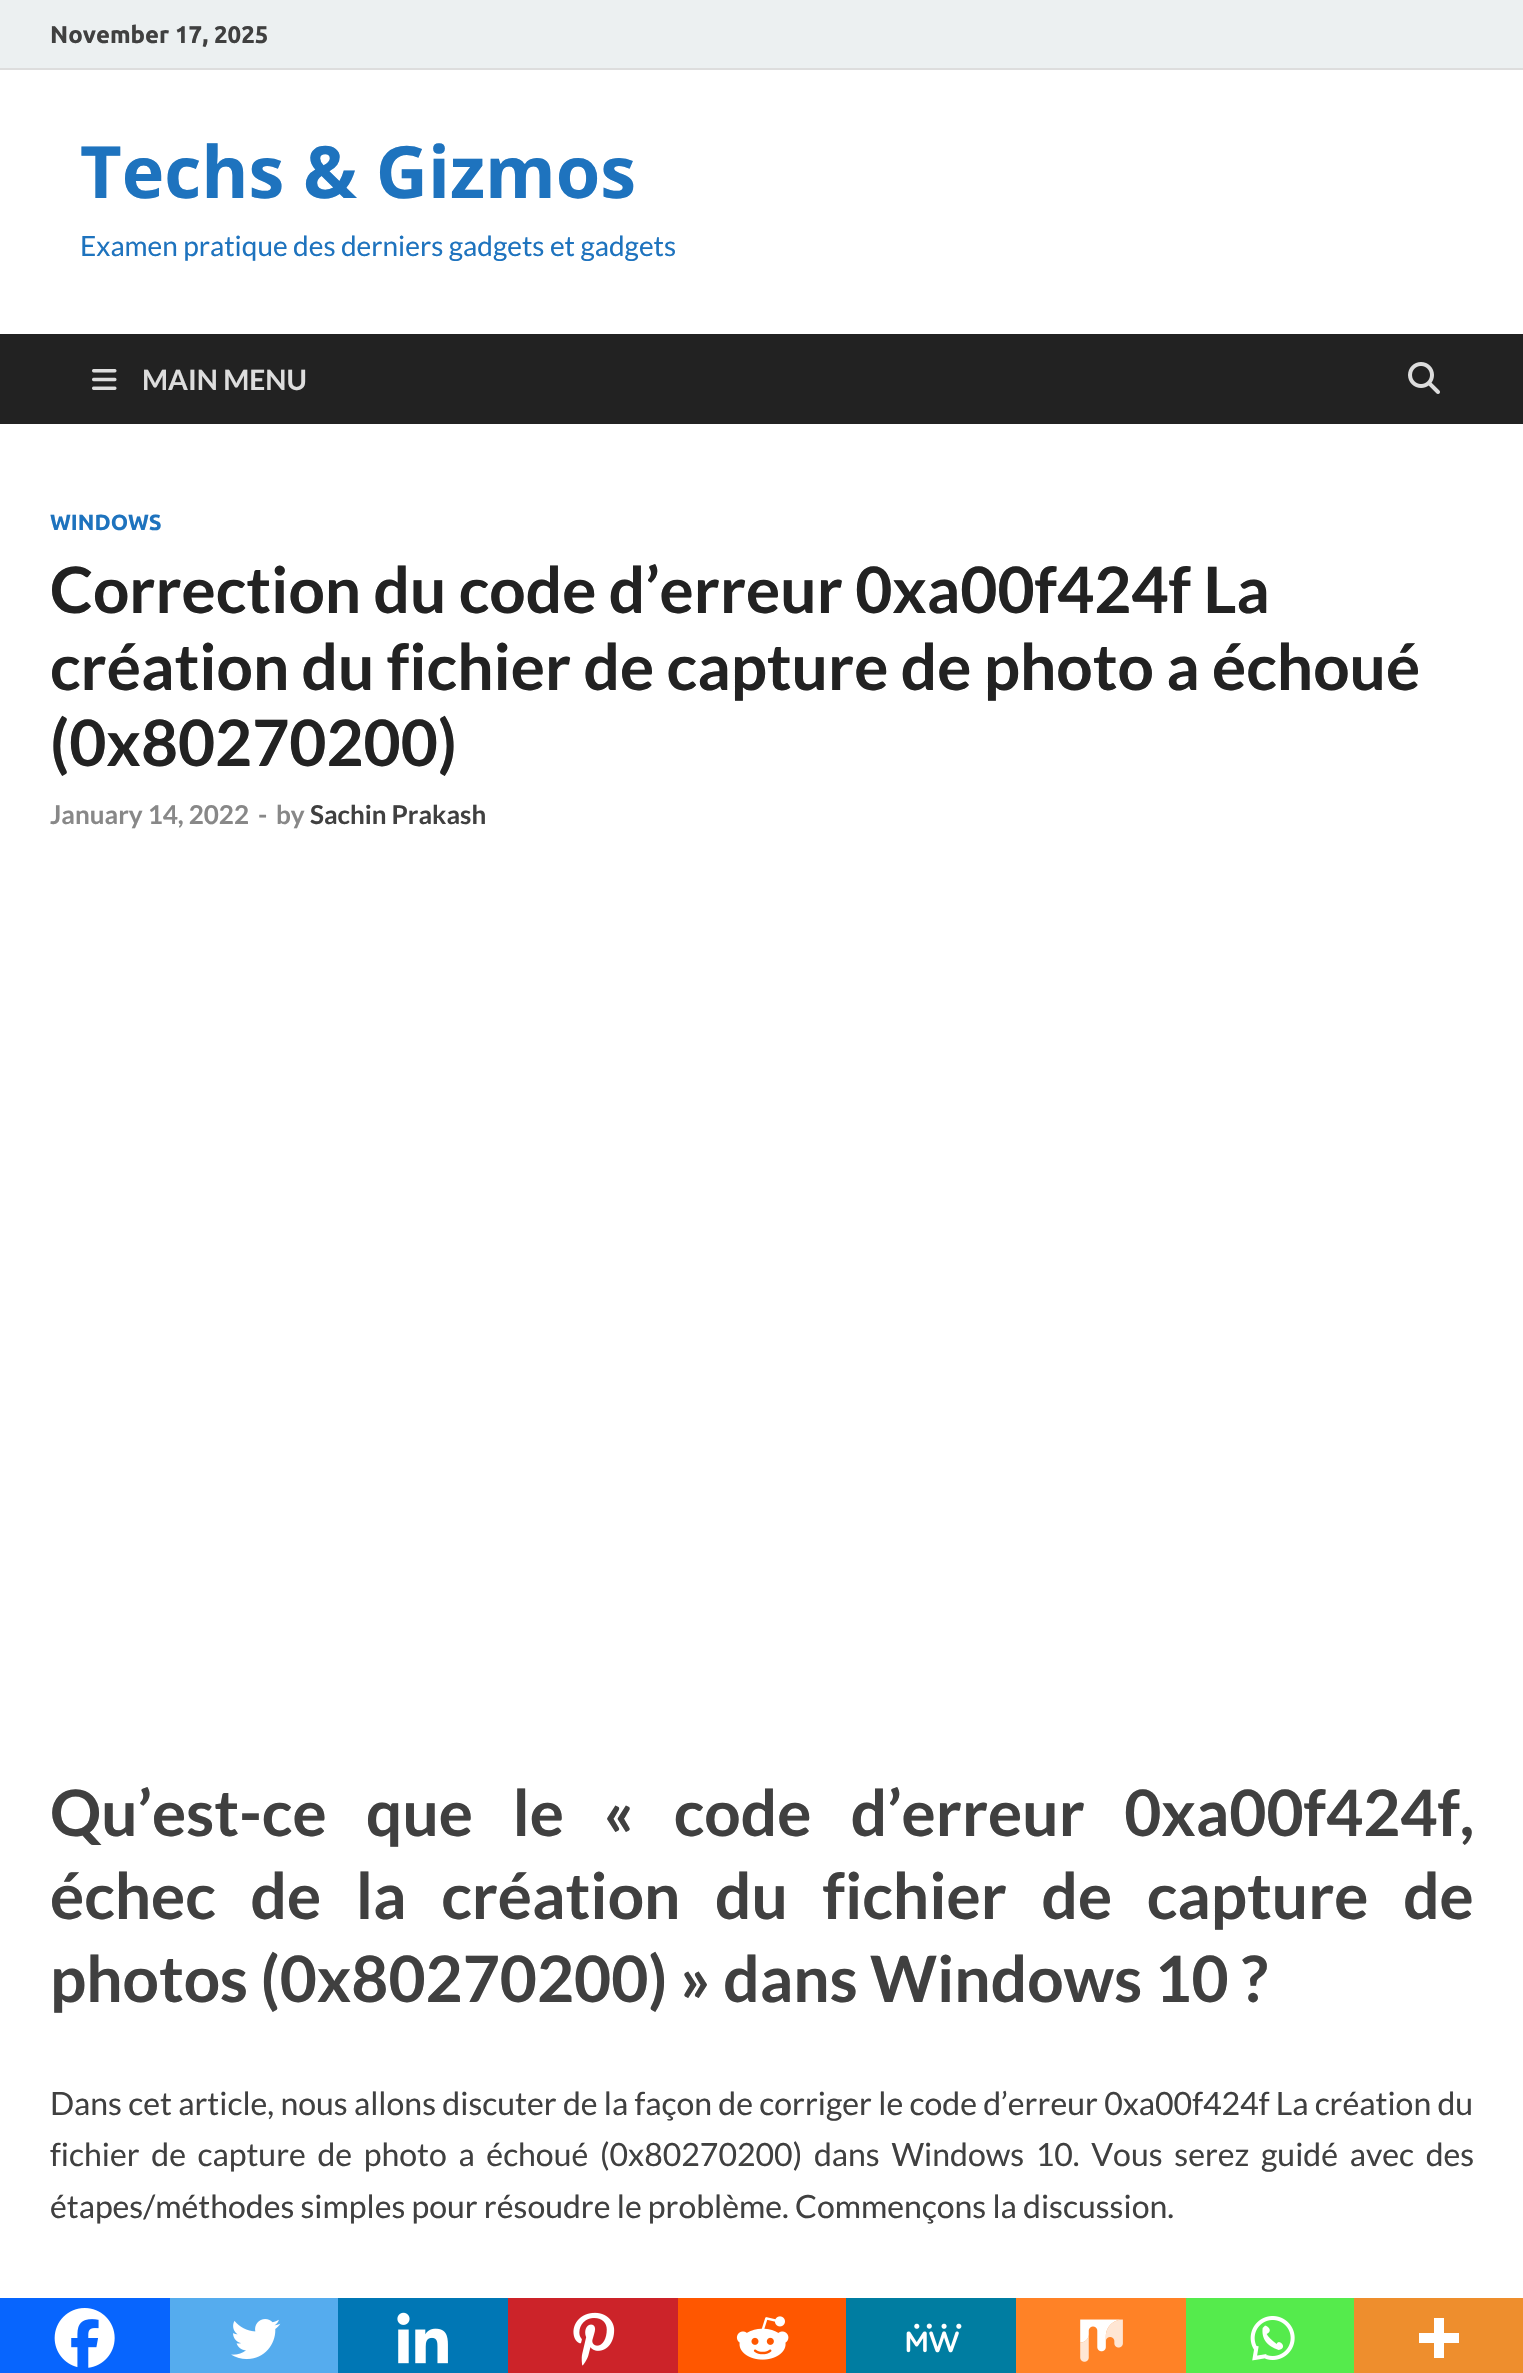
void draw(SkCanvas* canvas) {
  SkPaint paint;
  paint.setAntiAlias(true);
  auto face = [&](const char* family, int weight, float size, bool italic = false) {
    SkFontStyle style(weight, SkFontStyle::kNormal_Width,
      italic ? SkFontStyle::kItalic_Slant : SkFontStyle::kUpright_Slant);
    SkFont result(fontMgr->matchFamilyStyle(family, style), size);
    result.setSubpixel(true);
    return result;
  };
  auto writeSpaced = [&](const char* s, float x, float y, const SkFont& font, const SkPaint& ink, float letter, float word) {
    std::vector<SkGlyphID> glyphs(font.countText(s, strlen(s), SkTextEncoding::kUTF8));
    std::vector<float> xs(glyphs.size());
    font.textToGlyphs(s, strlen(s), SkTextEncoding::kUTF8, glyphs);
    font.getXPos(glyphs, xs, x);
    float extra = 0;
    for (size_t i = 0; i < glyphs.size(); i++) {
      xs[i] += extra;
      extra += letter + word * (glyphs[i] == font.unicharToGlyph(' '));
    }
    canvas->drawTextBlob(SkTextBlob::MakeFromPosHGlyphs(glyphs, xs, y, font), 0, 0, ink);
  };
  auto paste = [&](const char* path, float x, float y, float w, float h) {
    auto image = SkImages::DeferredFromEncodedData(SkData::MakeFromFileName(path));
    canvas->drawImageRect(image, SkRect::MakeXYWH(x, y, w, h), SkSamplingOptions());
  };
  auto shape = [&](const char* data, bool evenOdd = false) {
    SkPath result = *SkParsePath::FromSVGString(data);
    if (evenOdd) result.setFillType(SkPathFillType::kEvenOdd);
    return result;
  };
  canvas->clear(0xffffffff);
  {
    const struct { float x, y, w, h; SkColor color; } items[] = {
      {0, 0, 1523, 68, 0xffecf0f1},
      {0, 68, 1523, 2, 0xffdddddd},
      {0, 334, 1523, 90, 0xff222222},
    };
    for (auto [x, y, w, h, color] : items) {
      paint.setColor(color);
      canvas->drawRect(SkRect::MakeXYWH(x, y, w, h), paint);
    }
  }
  paste("img/1.png", 92, 369, 25, 21);
  paste("img/2.png", 1408, 362, 32, 32);
  paint.setColor(0xff0765fe);
  canvas->drawRect(SkRect::MakeXYWH(0, 2298, 170, 75), paint);
  paste("img/3.png", 54, 2308, 61, 60);
  paint.setColor(0xff55acee);
  canvas->drawRect(SkRect::MakeXYWH(170, 2298, 168, 75), paint);
  paste("img/4.png", 231, 2319, 50, 41);
  paint.setColor(0xff0077b5);
  canvas->drawRect(SkRect::MakeXYWH(338, 2298, 170, 75), paint);
  paste("img/5.png", 397, 2312, 51, 52);
  paint.setColor(0xffcc2329);
  canvas->drawRect(SkRect::MakeXYWH(508, 2298, 170, 75), paint);
  paste("img/6.png", 573, 2312, 42, 54);
  paint.setColor(0xffff5700);
  canvas->drawRect(SkRect::MakeXYWH(678, 2298, 168, 75), paint);
  paste("img/7.png", 736, 2316, 53, 44);
  paint.setColor(0xff007da1);
  canvas->drawRect(SkRect::MakeXYWH(846, 2298, 170, 75), paint);
  paste("img/8.png", 906, 2323, 56, 30);
  paint.setColor(0xffff8226);
  canvas->drawRect(SkRect::MakeXYWH(1016, 2298, 170, 75), paint);
  paste("img/9.png", 1080, 2319, 43, 43);
  paint.setColor(0xff55eb4c);
  canvas->drawRect(SkRect::MakeXYWH(1186, 2298, 168, 75), paint);
  paste("img/10.png", 1250, 2316, 45, 45);
  paint.setColor(0xffee8e2d);
  canvas->drawRect(SkRect::MakeXYWH(1354, 2298, 169, 75), paint);
  paint.setColor(0xffffffff);
  canvas->drawPath(shape("M1444 2333V2318H1434V2333H1419V2343H1434V2358H1444V2343H1459V2333Z", true), paint);
  auto f0 = face("Ubuntu", 700, 24);
  paint.setColor(0xff404040);
  canvas->drawString("November 17, 2025", 50, 43, f0, paint);
  auto f1 = face("Open Sans", 700, 72);
  paint.setColor(0xff1e73be);
  canvas->drawString("Techs & Gizmos", 80, 198, f1, paint);
  auto f2 = face("Lato", 400, 28);
  canvas->drawString("Examen pratique des derniers gadgets et gadgets", 80, 256, f2, paint);
  auto f3 = face("Lato", 700, 28);
  paint.setColor(0xffdddddd);
  canvas->drawString("MAIN MENU", 142, 390, f3, paint);
  auto f4 = face("Ubuntu", 700, 22);
  paint.setColor(0xff1e73be);
  canvas->drawString("WINDOWS", 50, 530, f4, paint);
  auto f5 = face("Lato", 700, 64);
  paint.setColor(0xff222222);
  {
    const struct { const char* s; float x, y; } items[] = {
      {"Correction du code d’erreur 0xa00f424f La", 50, 613},
      {"création du fichier de capture de photo a échoué", 50, 690},
      {"(0x80270200)", 50, 766},
    };
    for (auto [s, x, y] : items) {
      canvas->drawString(s, x, y, f5, paint);
    }
  }
  auto f6 = face("Lato", 700, 26);
  paint.setColor(0xff888888);
  {
    const struct { const char* s; float x, y; } items[] = {
      {"January 14, 2022", 50, 824},
      {"-", 258, 824},
      {"by", 276, 824},
    };
    for (auto [s, x, y] : items) {
      canvas->drawString(s, x, y, f6, paint);
    }
  }
  paint.setColor(0xff404040);
  canvas->drawString("Sachin Prakash", 310, 824, f6, paint);
  writeSpaced("Qu’est-ce que le « code d’erreur 0xa00f424f,", 50, 1836, f5, paint, 0, 27);
  writeSpaced("échec de la création du fichier de capture de", 50, 1919, f5, paint, 0, 22.25f);
  canvas->drawString("photos (0x80270200) » dans Windows 10 ?", 50, 2002, f5, paint);
  auto f7 = face("Lato", 400, 32);
  writeSpaced("Dans cet article, nous allons discuter de la façon de corriger le code d’erreur 0xa00f424f La création du", 50, 2115, f7, paint, 0, 0.1f);
  writeSpaced("fichier de capture de photo a échoué (0x80270200) dans Windows 10. Vous serez guidé avec des", 50, 2166, f7, paint, 0, 5.5f);
  canvas->drawString("étapes/méthodes simples pour résoudre le problème. Commençons la discussion.", 50, 2218, f7, paint);
}
